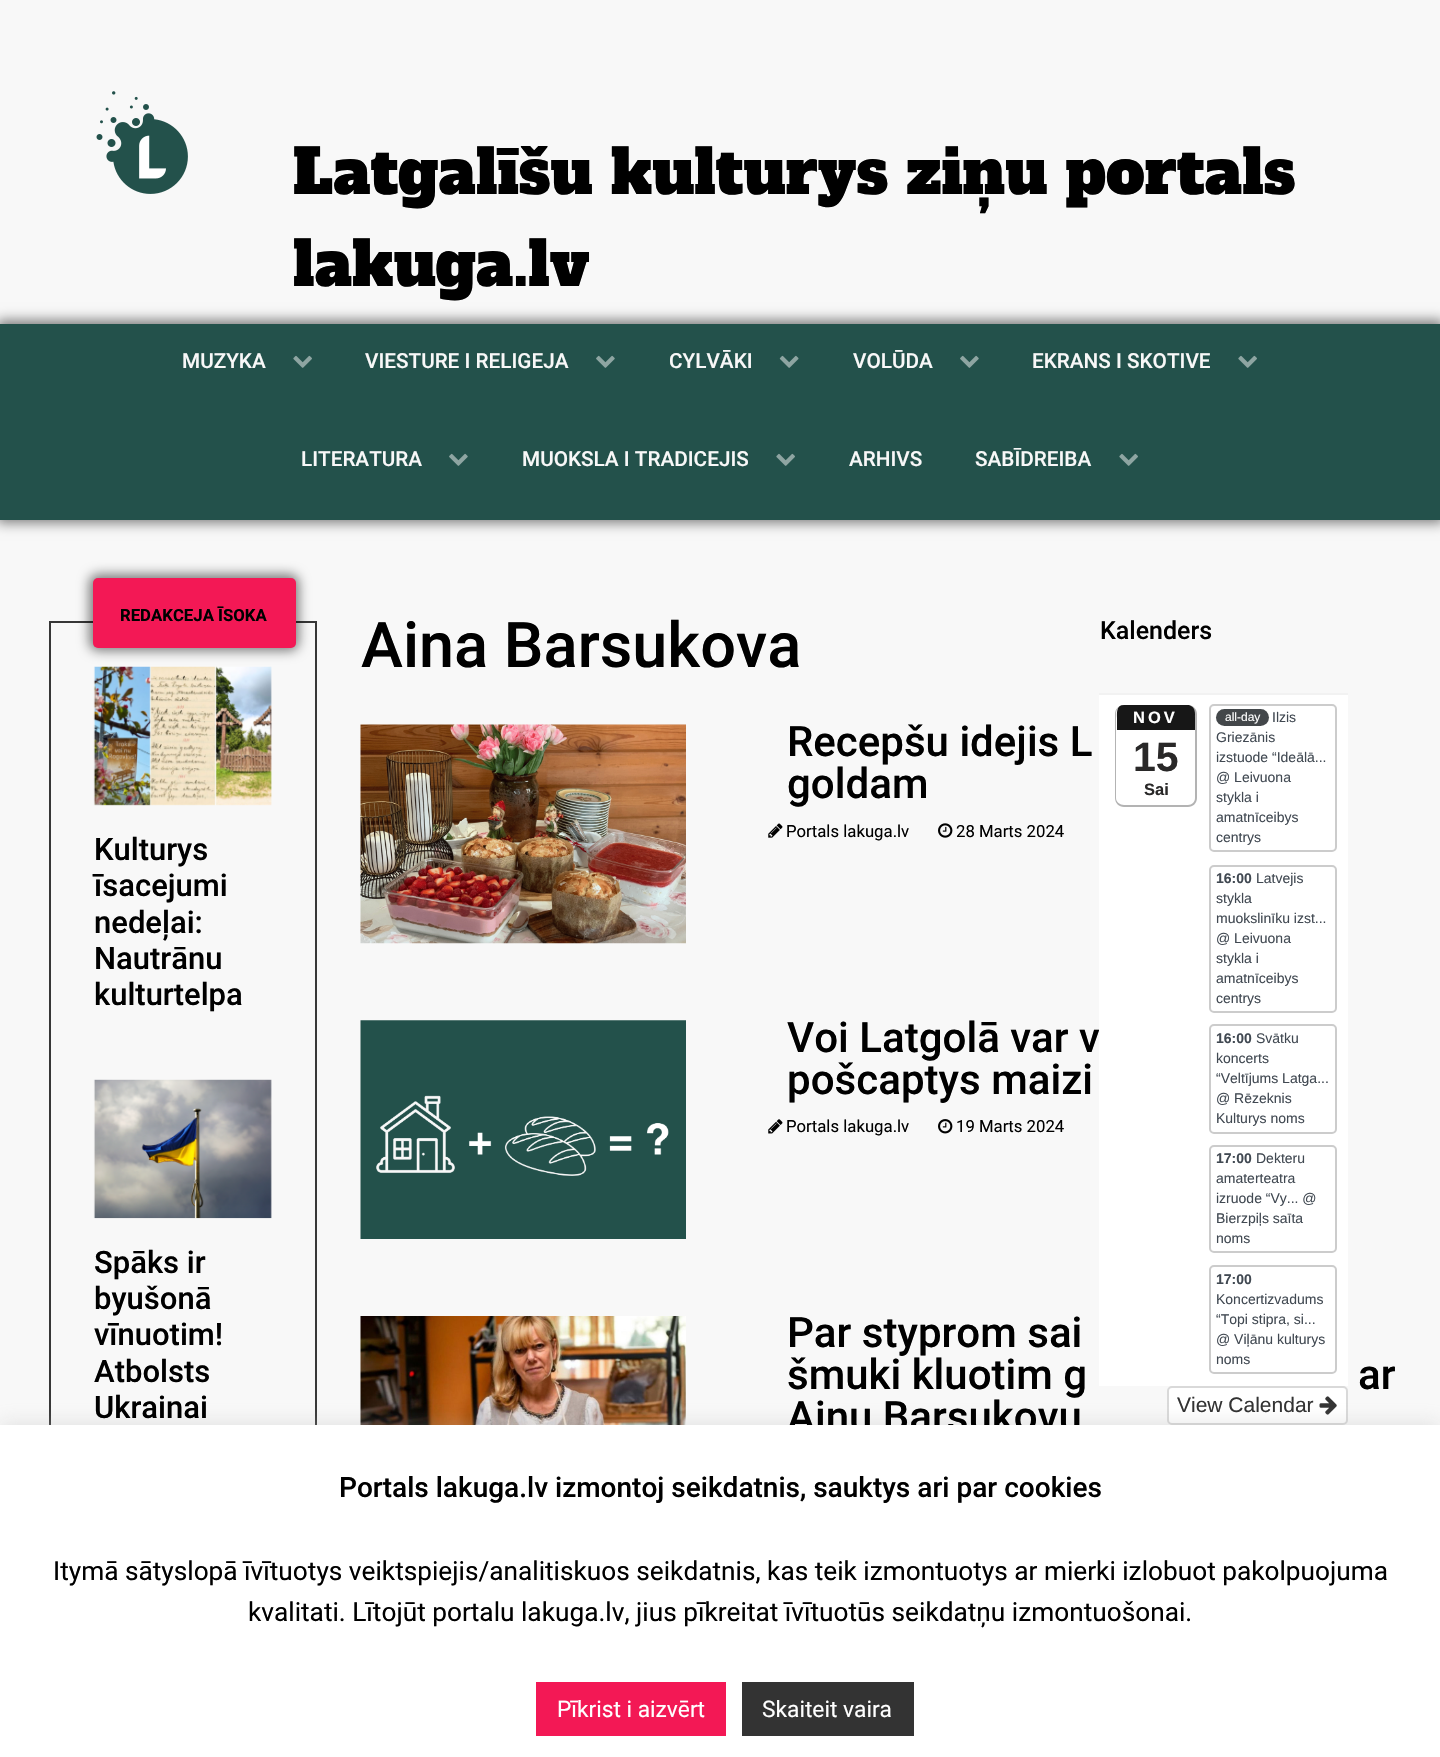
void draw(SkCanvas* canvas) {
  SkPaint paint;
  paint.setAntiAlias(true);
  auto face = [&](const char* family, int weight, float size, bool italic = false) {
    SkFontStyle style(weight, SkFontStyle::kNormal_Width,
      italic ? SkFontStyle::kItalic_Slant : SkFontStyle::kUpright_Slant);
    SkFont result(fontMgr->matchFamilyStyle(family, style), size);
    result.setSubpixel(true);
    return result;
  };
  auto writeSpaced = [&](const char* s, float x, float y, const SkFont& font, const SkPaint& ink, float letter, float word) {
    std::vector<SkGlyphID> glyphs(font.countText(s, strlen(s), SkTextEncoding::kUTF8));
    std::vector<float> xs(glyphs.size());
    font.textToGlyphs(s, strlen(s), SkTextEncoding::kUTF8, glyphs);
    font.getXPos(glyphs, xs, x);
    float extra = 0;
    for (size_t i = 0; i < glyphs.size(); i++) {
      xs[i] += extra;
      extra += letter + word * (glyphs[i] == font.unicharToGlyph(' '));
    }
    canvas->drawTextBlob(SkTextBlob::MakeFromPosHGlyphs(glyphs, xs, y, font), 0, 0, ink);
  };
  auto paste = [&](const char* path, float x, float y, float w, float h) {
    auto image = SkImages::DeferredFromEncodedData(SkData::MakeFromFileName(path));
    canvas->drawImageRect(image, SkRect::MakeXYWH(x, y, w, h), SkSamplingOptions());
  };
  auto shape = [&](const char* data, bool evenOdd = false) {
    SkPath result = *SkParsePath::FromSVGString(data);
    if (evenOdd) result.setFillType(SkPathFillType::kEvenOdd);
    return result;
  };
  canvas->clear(0xfff8f8f8);
  paste("img/1.png", 96, 91, 92, 103);
  paint.setColor(0x80000000);
  paint.setMaskFilter(SkMaskFilter::MakeBlur(kNormal_SkBlurStyle, 6));
  canvas->drawRect(SkRect::MakeXYWH(-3, 320, 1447, 203), paint);
  paint.setMaskFilter(nullptr);
  paint.setColor(0xff23514b);
  canvas->drawRect(SkRect::MakeXYWH(0, 324, 1440, 196), paint);
  paste("img/2.png", 293, 355, 19, 13);
  paste("img/3.png", 596, 355, 19, 13);
  paste("img/4.png", 779, 355, 20, 13);
  paste("img/3.png", 960, 355, 19, 13);
  paste("img/2.png", 1238, 355, 19, 13);
  paste("img/3.png", 449, 453, 19, 13);
  paste("img/2.png", 776, 453, 19, 13);
  paste("img/2.png", 1119, 453, 19, 13);
  paint.setStroke(true);
  paint.setStrokeWidth(2);
  paint.setColor(0xff373737);
  canvas->drawRect(SkRect::MakeXYWH(50, 622, 266, 922), paint);
  paint.setStroke(false);
  paint.setColor(0x80000000);
  paint.setMaskFilter(SkMaskFilter::MakeBlur(kNormal_SkBlurStyle, 6));
  canvas->drawRoundRect(SkRect::MakeXYWH(89, 574, 210, 77), 9, 9, paint);
  paint.setMaskFilter(nullptr);
  paint.setColor(0xfff31855);
  canvas->drawRoundRect(SkRect::MakeXYWH(93, 578, 203, 70), 5, 5, paint);
  paste("img/5.png", 93, 666, 179, 140);
  paste("img/6.png", 93, 1079, 179, 140);
  paste("img/7.png", 360, 724, 326, 220);
  paste("img/8.png", 768, 823, 15, 15);
  paste("img/9.png", 938, 823, 15, 15);
  paste("img/10.png", 360, 1020, 326, 219);
  paste("img/11.png", 768, 1119, 15, 15);
  paste("img/12.png", 938, 1119, 15, 15);
  paste("img/13.png", 360, 1316, 326, 109);
  paint.setColor(0xfff2f2f2);
  canvas->drawRect(SkRect::MakeXYWH(1099, 693, 249, 2), paint);
  paint.setColor(0xffffffff);
  canvas->drawRoundRect(SkRect::MakeXYWH(1168, 1387, 179, 37), 4, 4, paint);
  paint.setStroke(true);
  paint.setColor(0xffd9d9d9);
  canvas->drawRoundRect(SkRect::MakeXYWH(1168, 1387, 179, 37), 4, 4, paint);
  paste("img/14.png", 1319, 1396, 18, 19);
  paint.setStroke(false);
  paint.setColor(0x4dacabab);
  paint.setMaskFilter(SkMaskFilter::MakeBlur(kNormal_SkBlurStyle, 9));
  canvas->drawRect(SkRect::MakeXYWH(0, 1423, 1440, 332), paint);
  paint.setMaskFilter(nullptr);
  auto f0 = face("Alfa Slab One", 400, 61.25f);
  paint.setColor(0xff000000);
  canvas->drawString("Latgalīšu kulturys ziņu portals", 293, 194, f0, paint);
  canvas->drawString("lakuga.lv", 293, 286, f0, paint);
  auto f1 = face("Roboto", 500, 20.75f);
  paint.setColor(0xfff8f8f8);
  {
    const struct { const char* s; float x, y; } items[] = {
      {"MUZYKA", 182, 368},
      {"VIESTURE I RELIGEJA", 365, 368},
      {"CYLVĀKI", 669, 368},
      {"VOLŪDA", 853, 368},
      {"EKRANS I SKOTIVE", 1032, 368},
      {"LITERATURA", 301, 466},
      {"MUOKSLA I TRADICEJIS", 522, 466},
      {"ARHIVS", 849, 466},
      {"SABĪDREIBA", 975, 466},
    };
    for (auto [s, x, y] : items) {
      canvas->drawString(s, x, y, f1, paint);
    }
  }
  auto f2 = face("Roboto", 700, 16.75f);
  paint.setColor(0xff000000);
  canvas->drawString("REDAKCEJA ĪSOKA", 120, 621, f2, paint);
  auto f3 = face("Roboto", 500, 31);
  {
    const struct { const char* s; float x, y; } items[] = {
      {"Kulturys", 94, 860},
      {"īsacejumi", 94, 896},
      {"nedeļai:", 94, 933},
      {"Nautrānu", 94, 969},
      {"kulturtelpa", 94, 1005},
      {"Spāks ir", 94, 1273},
      {"byušonā", 94, 1309},
      {"vīnuotim!", 94, 1345},
      {"Atbolsts", 94, 1382},
      {"Ukrainai", 94, 1418},
    };
    for (auto [s, x, y] : items) {
      canvas->drawString(s, x, y, f3, paint);
    }
  }
  auto f4 = face("Roboto", 500, 63);
  canvas->drawString("Aina Barsukova", 361, 667, f4, paint);
  auto f5 = face("Roboto", 500, 42);
  canvas->drawString("Recepšu idejis L", 787, 756, f5, paint);
  canvas->drawString("goldam", 787, 798, f5, paint);
  auto f6 = face("Roboto", 400, 16.75f);
  canvas->drawString("Portals lakuga.lv", 786, 837, f6, paint);
  canvas->drawString("28 Marts 2024", 956, 837, f6, paint);
  canvas->drawString("Voi Latgolā var v", 787, 1052, f5, paint);
  canvas->drawString("pošcaptys maizi", 787, 1094, f5, paint);
  canvas->drawString("Portals lakuga.lv", 786, 1132, f6, paint);
  canvas->drawString("19 Marts 2024", 956, 1132, f6, paint);
  {
    const struct { const char* s; float x, y; } items[] = {
      {"Par styprom sai", 787, 1347},
      {"šmuki kluotim g", 787, 1389},
      {"ar", 1358, 1389},
      {"Ainu Barsukovu", 787, 1431},
    };
    for (auto [s, x, y] : items) {
      canvas->drawString(s, x, y, f5, paint);
    }
  }
  auto f7 = face("Roboto", 500, 25);
  canvas->drawString("Kalenders", 1100, 639, f7, paint);
  paint.setColor(0xffffffff);
  canvas->drawRect(SkRect::MakeXYWH(1099, 695, 249, 691), paint);
  paint.setColor(0xffb3b3b3);
  canvas->drawPath(shape("M1124 705H1188C1193 705 1197 709 1197 714V798C1197 803 1193 807 1188 807H1124C1119 807 1115 803 1115 798V714C1115 709 1119 705 1124 705ZM1124 705H1188C1192 705 1195 709 1195 714V798C1195 802 1192 805 1188 805H1124C1120 805 1116 802 1116 798V714C1116 709 1120 705 1124 705Z", true), paint);
  paint.setColor(0xff171717);
  canvas->drawPath(shape("M1124 705H1189C1196 707 1195 713 1195 718V730H1117V718C1117 713 1116 705 1124 705Z"), paint);
  auto f8 = face("Liberation Sans", 700, 16.5f);
  paint.setColor(0xffffffff);
  writeSpaced("NOV", 1133, 723, f8, paint, 3, 0);
  auto f9 = face("Liberation Sans", 700, 41);
  paint.setColor(0xff292828);
  canvas->drawString("15", 1133, 771, f9, paint);
  canvas->drawString("Sai", 1144, 795, f8, paint);
  paint.setStroke(true);
  paint.setColor(0xffcccccc);
  canvas->drawRoundRect(SkRect::MakeXYWH(1210, 705, 126, 146), 4, 4, paint);
  paint.setStroke(false);
  paint.setColor(0xff43474a);
  canvas->drawRoundRect(SkRect::MakeXYWH(1216, 709, 53, 17), 8.5f, 8.5f, paint);
  auto f10 = face("Liberation Sans", 400, 12);
  paint.setColor(0xffffffff);
  canvas->drawString("all-day", 1225, 721, f10, paint);
  auto f11 = face("Liberation Sans", 400, 14);
  paint.setColor(0xff414952);
  {
    const struct { const char* s; float x, y; } items[] = {
      {"Ilzis", 1272, 722},
      {"Griezānis", 1216, 742},
      {"izstuode “Ideālā...", 1216, 762},
      {"@ Leivuona", 1216, 782},
      {"stykla i", 1216, 802},
      {"amatnīceibys", 1216, 822},
      {"centrys", 1216, 842},
    };
    for (auto [s, x, y] : items) {
      canvas->drawString(s, x, y, f11, paint);
    }
  }
  paint.setStroke(true);
  paint.setColor(0xffcccccc);
  canvas->drawRoundRect(SkRect::MakeXYWH(1210, 866, 126, 146), 4, 4, paint);
  auto f12 = face("Liberation Sans", 700, 14);
  paint.setStroke(false);
  paint.setColor(0xff414952);
  canvas->drawString("16:00", 1216, 883, f12, paint);
  {
    const struct { const char* s; float x, y; } items[] = {
      {"Latvejis", 1256, 883},
      {"stykla", 1216, 903},
      {"muokslinīku izst...", 1216, 923},
      {"@ Leivuona", 1216, 943},
      {"stykla i", 1216, 963},
      {"amatnīceibys", 1216, 983},
      {"centrys", 1216, 1003},
    };
    for (auto [s, x, y] : items) {
      canvas->drawString(s, x, y, f11, paint);
    }
  }
  paint.setStroke(true);
  paint.setColor(0xffcccccc);
  canvas->drawRoundRect(SkRect::MakeXYWH(1210, 1025, 126, 108), 4, 4, paint);
  paint.setStroke(false);
  paint.setColor(0xff414952);
  canvas->drawString("16:00", 1216, 1043, f12, paint);
  {
    const struct { const char* s; float x, y; } items[] = {
      {"Svātku", 1256, 1043},
      {"koncerts", 1216, 1063},
      {"“Veltījums Latga...", 1216, 1083},
      {"@ Rēzeknis", 1216, 1103},
      {"Kulturys noms", 1216, 1123},
    };
    for (auto [s, x, y] : items) {
      canvas->drawString(s, x, y, f11, paint);
    }
  }
  paint.setStroke(true);
  paint.setColor(0xffcccccc);
  canvas->drawRoundRect(SkRect::MakeXYWH(1210, 1146, 126, 106), 4, 4, paint);
  paint.setStroke(false);
  paint.setColor(0xff414952);
  canvas->drawString("17:00", 1216, 1163, f12, paint);
  {
    const struct { const char* s; float x, y; } items[] = {
      {"Dekteru", 1256, 1163},
      {"amaterteatra", 1216, 1183},
      {"izruode “Vy... @", 1216, 1203},
      {"Bierzpiļs saīta", 1216, 1223},
      {"noms", 1216, 1243},
    };
    for (auto [s, x, y] : items) {
      canvas->drawString(s, x, y, f11, paint);
    }
  }
  paint.setStroke(true);
  paint.setColor(0xffcccccc);
  canvas->drawRoundRect(SkRect::MakeXYWH(1210, 1266, 126, 107), 4, 4, paint);
  paint.setStroke(false);
  paint.setColor(0xff414952);
  canvas->drawString("17:00", 1216, 1284, f12, paint);
  {
    const struct { const char* s; float x, y; } items[] = {
      {"Koncertizvadums", 1216, 1304},
      {"“Topi stipra, si...", 1216, 1324},
      {"@ Viļānu kulturys", 1216, 1344},
      {"noms", 1216, 1364},
    };
    for (auto [s, x, y] : items) {
      canvas->drawString(s, x, y, f11, paint);
    }
  }
  auto f13 = face("Liberation Sans", 400, 21);
  paint.setColor(0xff333333);
  canvas->drawString("View Calendar", 1177, 1412, f13, paint);
  paint.setColor(0xffffffff);
  canvas->drawRect(SkRect::MakeXYWH(0, 1425, 1440, 332), paint);
  auto f14 = face("Roboto", 500, 28);
  paint.setColor(0xff000000);
  canvas->drawString("Portals lakuga.lv izmontoj seikdatnis, sauktys ari par cookies", 339, 1497, f14, paint);
  auto f15 = face("Roboto", 400, 26.25f);
  canvas->drawString("Itymā sātyslopā īvītuotys veiktspiejis/analitiskuos seikdatnis, kas teik izmontuotys ar mierki izlobuot pakolpuojuma", 53, 1580, f15, paint);
  canvas->drawString("kvalitati. Lītojūt portalu lakuga.lv, jius pīkreitat īvītuotūs seikdatņu izmontuošonai.", 248, 1621, f15, paint);
  paint.setColor(0xfff31855);
  canvas->drawRect(SkRect::MakeXYWH(536, 1682, 190, 54), paint);
  auto f16 = face("Roboto", 400, 22.75f);
  paint.setColor(0xffffffff);
  canvas->drawString("Pīkrist i aizvērt", 557, 1717, f16, paint);
  paint.setColor(0xff333333);
  canvas->drawRect(SkRect::MakeXYWH(742, 1682, 172, 54), paint);
  paint.setColor(0xffffffff);
  canvas->drawString("Skaiteit vaira", 762, 1717, f16, paint);
}
